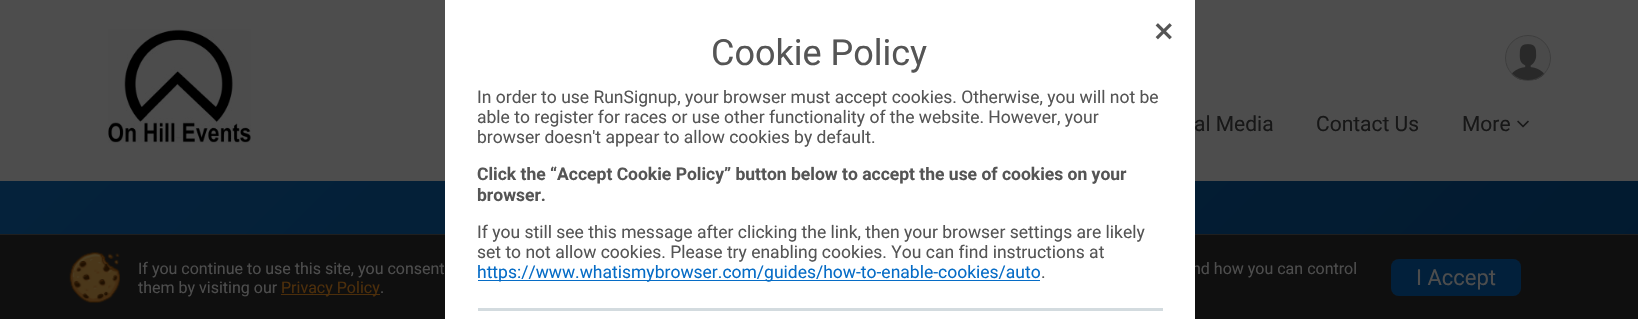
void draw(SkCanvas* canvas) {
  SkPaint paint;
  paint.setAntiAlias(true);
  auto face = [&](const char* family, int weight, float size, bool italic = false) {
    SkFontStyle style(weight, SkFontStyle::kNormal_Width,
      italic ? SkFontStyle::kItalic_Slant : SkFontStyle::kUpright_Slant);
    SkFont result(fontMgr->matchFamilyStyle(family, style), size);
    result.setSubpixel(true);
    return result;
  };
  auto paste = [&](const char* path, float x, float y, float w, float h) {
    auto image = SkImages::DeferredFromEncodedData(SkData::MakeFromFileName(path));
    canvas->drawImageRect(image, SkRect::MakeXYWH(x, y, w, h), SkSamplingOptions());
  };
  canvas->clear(0xff4d4d4d);
  paste("img/2.png", 108, 29, 143, 114);
  paste("img/3.png", 1506, 36, 44, 44);
  paint.setStroke(true);
  paint.setStrokeWidth(1);
  paint.setColor(0xff3d3d3d);
  canvas->drawCircle(1528, 58, 22.5f, paint);
  paste("img/4.png", 1517, 120, 12, 8);
  paint.setStroke(false);
  {
    const SkColor colors[] = {0xff021a2f, 0xff05223b};
    const float stops[] = {0, 1};
    const SkPoint ends[] = {{1267, 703}, {372, -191}};
    paint.setShader(SkGradientShader::MakeLinear(ends, colors, stops, 2, SkTileMode::kClamp));
    paint.setAlpha(255);
  }
  canvas->drawRect(SkRect::MakeXYWH(0, 181, 1638, 53), paint);
  paint.setShader(nullptr);
  paint.setColor(0xff0f0f0f);
  canvas->drawRect(SkRect::MakeXYWH(0, 235, 1638, 84), paint);
  paint.setColor(0xff1f1f1f);
  canvas->drawRect(SkRect::MakeXYWH(0, 234, 1638, 1), paint);
  paste("img/5.png", 69, 252, 51, 51);
  paint.setColor(0xff4c2e0b);
  canvas->drawRect(SkRect::MakeXYWH(281, 294, 99, 1), paint);
  paint.setColor(0xff02203b);
  canvas->drawRoundRect(SkRect::MakeXYWH(1391, 259, 130, 37), 8, 8, paint);
  auto f0 = face("Roboto", 400, 21);
  paint.setColor(0xff171717);
  {
    const struct { const char* s; float x, y; } items[] = {
      {"al Media", 1194, 131},
      {"Contact Us", 1316, 131},
      {"More", 1462, 131},
    };
    for (auto [s, x, y] : items) {
      canvas->drawString(s, x, y, f0, paint);
    }
  }
  auto f1 = face("Roboto", 400, 16);
  paint.setColor(0xff4d4d4d);
  canvas->drawString("If you continue to use this site, you consent", 138, 274, f1, paint);
  canvas->drawString("nd how you can control", 1192, 274, f1, paint);
  paint.setStroke(true);
  paint.setColor(0xffffffff);
  canvas->drawRect(SkRect::MakeXYWH(445.5f, 0.5f, 749, 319), paint);
  paint.setStroke(false);
  canvas->drawRect(SkRect::MakeXYWH(446, 1, 748, 318), paint);
  paste("img/1.png", 1155, 23, 17, 17);
  paint.setColor(0xffd3dbdf);
  canvas->drawRect(SkRect::MakeXYWH(478, 308, 685, 3), paint);
  auto f2 = face("Roboto", 400, 17.5f);
  paint.setColor(0xff555555);
  canvas->drawString(".", 1041, 278, f2, paint);
  paint.setColor(0xff066cc6);
  canvas->drawRect(SkRect::MakeXYWH(478, 280, 562, 1), paint);
  canvas->drawString("https://www.whatismybrowser.com/guides/how-to-enable-cookies/auto", 477, 278, f2, paint);
  paint.setColor(0xff555555);
  canvas->drawString("set to not allow cookies. Please try enabling cookies. You can find instructions at", 477, 258, f2, paint);
  canvas->drawString("If you still see this message after clicking the link, then your browser settings are likely", 477, 238, f2, paint);
  auto f3 = face("Roboto", 700, 17.5f);
  canvas->drawString("browser.", 477, 201, f3, paint);
  canvas->drawString("Click the “Accept Cookie Policy” button below to accept the use of cookies on your", 477, 180, f3, paint);
  {
    const struct { const char* s; float x, y; } items[] = {
      {"browser doesn't appear to allow cookies by default.", 477, 143},
      {"able to register for races or use other functionality of the website. However, your", 477, 123},
      {"In order to use RunSignup, your browser must accept cookies. Otherwise, you will not be", 477, 103},
    };
    for (auto [s, x, y] : items) {
      canvas->drawString(s, x, y, f2, paint);
    }
  }
  auto f4 = face("Roboto", 400, 36);
  canvas->drawString("Cookie Policy", 711, 65, f4, paint);
  paint.setColor(0xff4d4d4d);
  canvas->drawString("them by visiting our", 138, 293, f1, paint);
  paint.setColor(0xff4c2e0b);
  canvas->drawString("Privacy Policy", 281, 293, f1, paint);
  paint.setColor(0xff4d4d4d);
  canvas->drawString(".", 380, 293, f1, paint);
  auto f5 = face("Roboto", 400, 22);
  canvas->drawString("I Accept", 1416, 285, f5, paint);
}
